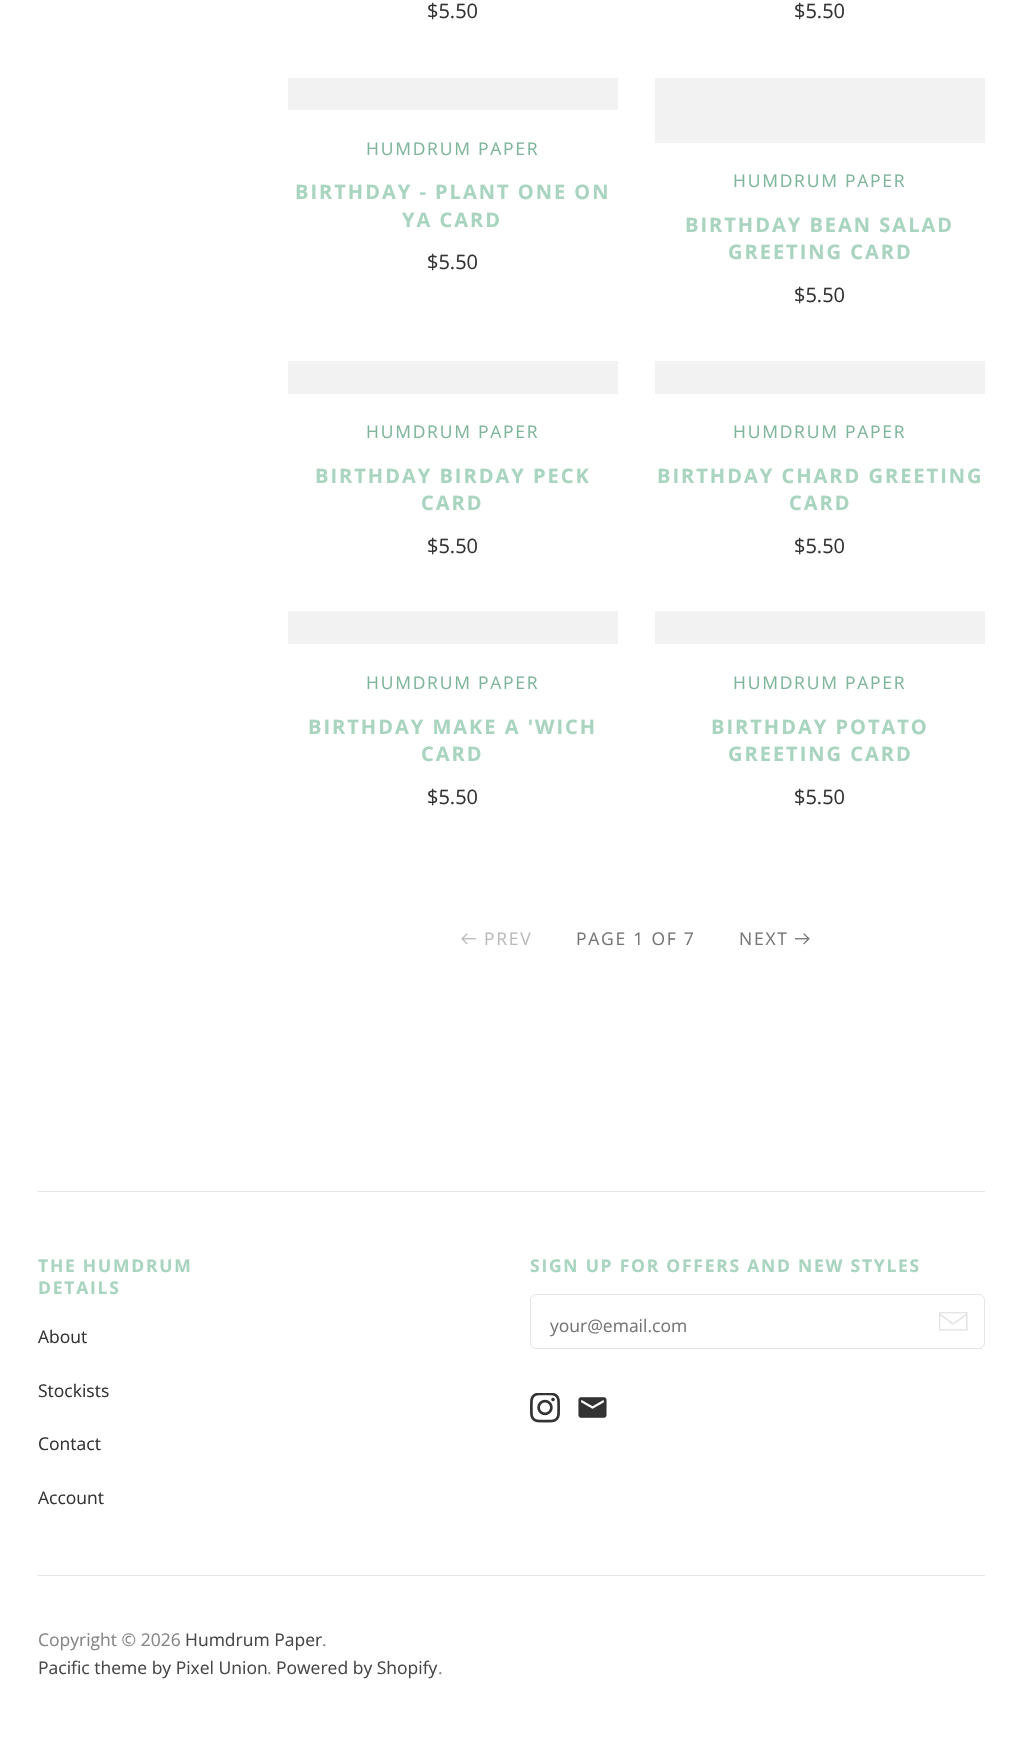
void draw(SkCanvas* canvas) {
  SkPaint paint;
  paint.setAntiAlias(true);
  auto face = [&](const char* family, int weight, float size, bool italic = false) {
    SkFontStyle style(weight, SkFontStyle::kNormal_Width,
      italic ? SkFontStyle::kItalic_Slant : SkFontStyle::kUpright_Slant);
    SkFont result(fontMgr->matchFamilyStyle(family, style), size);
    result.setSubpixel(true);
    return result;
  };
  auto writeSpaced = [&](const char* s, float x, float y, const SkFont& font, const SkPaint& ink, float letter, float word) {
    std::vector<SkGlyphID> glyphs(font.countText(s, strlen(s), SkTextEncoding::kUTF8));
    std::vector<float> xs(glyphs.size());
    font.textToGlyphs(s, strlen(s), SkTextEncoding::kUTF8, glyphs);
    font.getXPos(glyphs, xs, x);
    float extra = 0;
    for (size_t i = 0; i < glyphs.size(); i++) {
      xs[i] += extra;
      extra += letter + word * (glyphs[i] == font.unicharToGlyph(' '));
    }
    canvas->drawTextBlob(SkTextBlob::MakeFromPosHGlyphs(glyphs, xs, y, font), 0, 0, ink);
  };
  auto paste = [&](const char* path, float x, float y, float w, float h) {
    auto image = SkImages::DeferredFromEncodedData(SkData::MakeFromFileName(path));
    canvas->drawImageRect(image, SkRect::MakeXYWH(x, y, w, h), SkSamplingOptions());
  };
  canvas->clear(0xffffffff);
  {
    const struct { float x, y, w, h; SkColor color; } items[] = {
      {288, 78, 330, 32, 0xfff2f2f2},
      {655, 78, 330, 65, 0xfff2f2f2},
      {288, 361, 330, 33, 0xfff2f2f2},
      {655, 361, 330, 33, 0xfff2f2f2},
      {288, 611, 330, 33, 0xfff2f2f2},
      {655, 611, 330, 33, 0xfff2f2f2},
    };
    for (auto [x, y, w, h, color] : items) {
      paint.setColor(color);
      canvas->drawRect(SkRect::MakeXYWH(x, y, w, h), paint);
    }
  }
  paste("img/1.png", 461, 933, 15, 12);
  paste("img/2.png", 795, 933, 15, 12);
  paint.setColor(0xffe5e5e5);
  canvas->drawRect(SkRect::MakeXYWH(38, 1191, 947, 1), paint);
  paint.setStroke(true);
  paint.setStrokeWidth(1);
  canvas->drawRoundRect(SkRect::MakeXYWH(530.5f, 1294.5f, 454, 54), 5.5f, 5.5f, paint);
  paint.setStroke(false);
  paint.setColor(0xffffffff);
  canvas->drawRoundRect(SkRect::MakeXYWH(531, 1295, 378, 53), 6, 6, paint);
  paste("img/3.png", 939, 1312, 29, 19);
  paste("img/4.png", 530, 1393, 30, 30);
  paste("img/5.png", 578, 1397, 29, 21);
  paint.setColor(0xffe5e5e5);
  canvas->drawRect(SkRect::MakeXYWH(38, 1575, 947, 1), paint);
  auto f0 = face("Open Sans", 400, 20);
  paint.setColor(0xff333333);
  canvas->drawString("$5.50", 427, 18, f0, paint);
  canvas->drawString("$5.50", 794, 18, f0, paint);
  auto f1 = face("Open Sans", 400, 17.5f);
  paint.setColor(0xff7eb59b);
  writeSpaced("HUMDRUM PAPER", 366, 155, f1, paint, 1.75f, 0);
  auto f2 = face("Open Sans", 700, 20);
  paint.setColor(0xffa9d5c0);
  writeSpaced("BIRTHDAY - PLANT ONE ON", 295, 199, f2, paint, 2, 0);
  writeSpaced("YA CARD", 402, 227, f2, paint, 2, 0);
  paint.setColor(0xff333333);
  canvas->drawString("$5.50", 427, 269, f0, paint);
  paint.setColor(0xff7eb59b);
  writeSpaced("HUMDRUM PAPER", 733, 187, f1, paint, 1.75f, 0);
  paint.setColor(0xffa9d5c0);
  writeSpaced("BIRTHDAY BEAN SALAD", 685, 232, f2, paint, 2, 0);
  writeSpaced("GREETING CARD", 728, 259, f2, paint, 2, 0);
  paint.setColor(0xff333333);
  canvas->drawString("$5.50", 794, 302, f0, paint);
  paint.setColor(0xff7eb59b);
  writeSpaced("HUMDRUM PAPER", 366, 438, f1, paint, 1.75f, 0);
  paint.setColor(0xffa9d5c0);
  writeSpaced("BIRTHDAY BIRDAY PECK", 315, 483, f2, paint, 2, 0);
  writeSpaced("CARD", 421, 510, f2, paint, 2, 0);
  paint.setColor(0xff333333);
  canvas->drawString("$5.50", 427, 553, f0, paint);
  paint.setColor(0xff7eb59b);
  writeSpaced("HUMDRUM PAPER", 733, 438, f1, paint, 1.75f, 0);
  paint.setColor(0xffa9d5c0);
  writeSpaced("BIRTHDAY CHARD GREETING", 657, 483, f2, paint, 2, 0);
  writeSpaced("CARD", 789, 510, f2, paint, 2, 0);
  paint.setColor(0xff333333);
  canvas->drawString("$5.50", 794, 553, f0, paint);
  paint.setColor(0xff7eb59b);
  writeSpaced("HUMDRUM PAPER", 366, 689, f1, paint, 1.75f, 0);
  paint.setColor(0xffa9d5c0);
  writeSpaced("BIRTHDAY MAKE A 'WICH", 308, 734, f2, paint, 2, 0);
  writeSpaced("CARD", 421, 761, f2, paint, 2, 0);
  paint.setColor(0xff333333);
  canvas->drawString("$5.50", 427, 804, f0, paint);
  paint.setColor(0xff7eb59b);
  writeSpaced("HUMDRUM PAPER", 733, 689, f1, paint, 1.75f, 0);
  paint.setColor(0xffa9d5c0);
  writeSpaced("BIRTHDAY POTATO", 711, 734, f2, paint, 2, 0);
  writeSpaced("GREETING CARD", 728, 761, f2, paint, 2, 0);
  paint.setColor(0xff333333);
  canvas->drawString("$5.50", 794, 804, f0, paint);
  paint.setColor(0xffbababa);
  writeSpaced("PREV", 484, 945, f1, paint, 1.75f, 0);
  paint.setColor(0xff757575);
  writeSpaced("PAGE 1 OF 7", 576, 945, f1, paint, 1.75f, 0);
  writeSpaced("NEXT", 739, 945, f1, paint, 1.75f, 0);
  auto f3 = face("Open Sans", 700, 17.5f);
  paint.setColor(0xffa9d5c0);
  writeSpaced("THE HUMDRUM", 38, 1272, f3, paint, 1.75f, 0);
  writeSpaced("DETAILS", 38, 1294, f3, paint, 1.75f, 0);
  paint.setColor(0xff333333);
  {
    const struct { const char* s; float x, y; } items[] = {
      {"About", 38, 1343},
      {"Stockists", 38, 1397},
      {"Contact", 38, 1450},
      {"Account", 38, 1504},
    };
    for (auto [s, x, y] : items) {
      canvas->drawString(s, x, y, f1, paint);
    }
  }
  paint.setColor(0xffa9d5c0);
  writeSpaced("SIGN UP FOR OFFERS AND NEW STYLES", 530, 1272, f3, paint, 1.75f, 0);
  paint.setColor(0xff757575);
  canvas->drawString("your@email.com", 550, 1332, f1, paint);
  paint.setColor(0xff858585);
  canvas->drawString("Copyright © 2026", 38, 1646, f1, paint);
  paint.setColor(0xff474747);
  canvas->drawString("Humdrum Paper", 185, 1646, f1, paint);
  paint.setColor(0xff858585);
  canvas->drawString(".", 322, 1646, f1, paint);
  paint.setColor(0xff474747);
  canvas->drawString("Pacific theme by Pixel Union", 38, 1674, f1, paint);
  paint.setColor(0xff858585);
  canvas->drawString(".", 267, 1674, f1, paint);
  paint.setColor(0xff474747);
  canvas->drawString("Powered by Shopify", 276, 1674, f1, paint);
  paint.setColor(0xff858585);
  canvas->drawString(".", 438, 1674, f1, paint);
}
